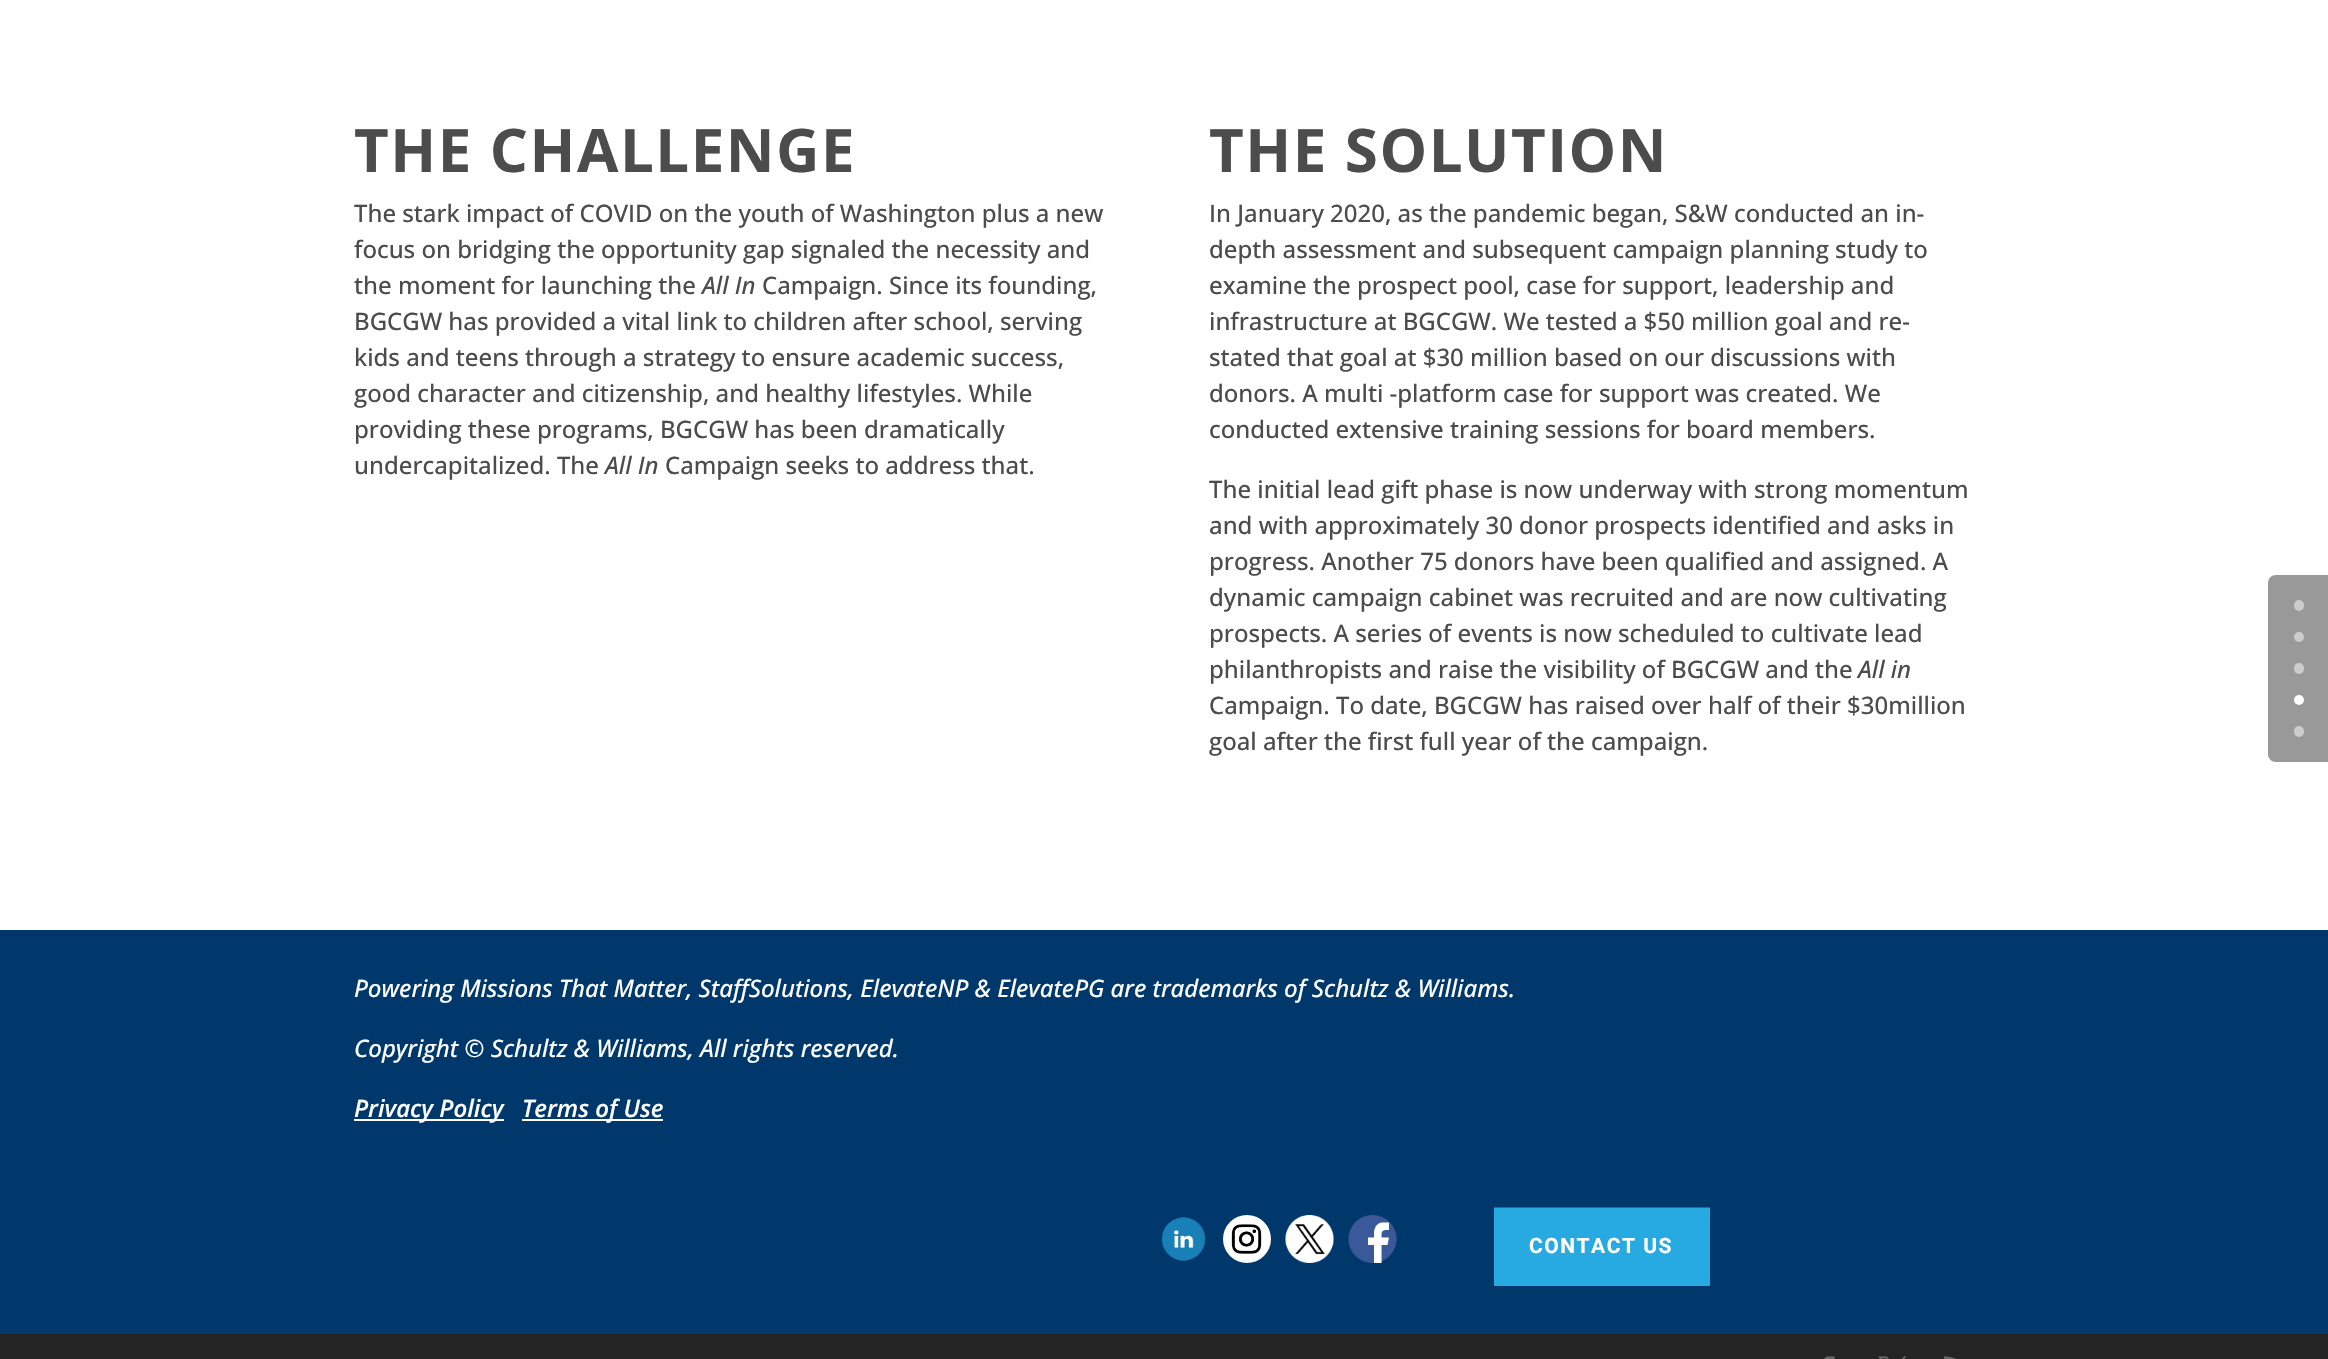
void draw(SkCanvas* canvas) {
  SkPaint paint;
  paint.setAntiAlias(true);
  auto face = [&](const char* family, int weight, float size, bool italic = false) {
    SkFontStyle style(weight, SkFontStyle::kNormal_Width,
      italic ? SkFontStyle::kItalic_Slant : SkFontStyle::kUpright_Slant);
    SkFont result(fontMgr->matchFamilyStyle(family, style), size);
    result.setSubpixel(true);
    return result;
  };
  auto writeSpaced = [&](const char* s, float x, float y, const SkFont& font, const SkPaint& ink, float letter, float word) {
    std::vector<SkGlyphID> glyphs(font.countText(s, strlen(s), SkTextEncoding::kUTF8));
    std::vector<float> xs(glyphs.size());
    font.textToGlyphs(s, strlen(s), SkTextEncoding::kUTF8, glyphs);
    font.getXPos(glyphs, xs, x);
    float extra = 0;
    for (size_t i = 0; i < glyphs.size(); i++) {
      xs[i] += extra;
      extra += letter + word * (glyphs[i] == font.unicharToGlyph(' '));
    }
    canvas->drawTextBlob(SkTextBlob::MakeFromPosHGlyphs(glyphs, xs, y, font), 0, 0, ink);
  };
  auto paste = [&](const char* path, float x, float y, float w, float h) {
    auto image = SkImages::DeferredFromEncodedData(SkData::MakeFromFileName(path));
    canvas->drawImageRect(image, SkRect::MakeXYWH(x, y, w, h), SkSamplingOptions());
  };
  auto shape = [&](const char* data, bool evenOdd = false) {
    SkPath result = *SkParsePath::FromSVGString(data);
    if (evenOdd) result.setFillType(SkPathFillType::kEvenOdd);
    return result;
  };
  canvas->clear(0xffffffff);
  {
    const struct { float x, y, w, h; SkColor color; } items[] = {
      {0, 930, 2328, 404, 0xff00386c},
      {354, 1119, 150, 2, 0xffffffff},
      {522, 1119, 141, 2, 0xffffffff},
    };
    for (auto [x, y, w, h, color] : items) {
      paint.setColor(color);
      canvas->drawRect(SkRect::MakeXYWH(x, y, w, h), paint);
    }
  }
  paste("img/1.png", 1161, 1217, 45, 44);
  canvas->drawCircle(1247, 1239, 24, paint);
  paste("img/2.png", 1231, 1224, 31, 30);
  paste("img/3.png", 1285, 1215, 49, 48);
  paste("img/4.png", 1348, 1215, 49, 48);
  paint.setColor(0xff27aae1);
  canvas->drawRoundRect(SkRect::MakeXYWH(1494, 1208, 216, 78), 1.5f, 1.5f, paint);
  paint.setStroke(true);
  paint.setStrokeWidth(15);
  canvas->drawPath(shape("M1501.5 1215H1702.5V1278H1501.5Z"), paint);
  paint.setStroke(false);
  paint.setColor(0xff999999);
  canvas->drawPath(shape("M2276 575H2328V762H2276C2271.5 762 2268 758.5 2268 754V583C2268 578.5 2271.5 575 2276 575Z"), paint);
  paint.setColor(0xffcccccc);
  canvas->drawRoundRect(SkRect::MakeXYWH(2294, 600, 10, 11), 5, 5, paint);
  canvas->drawCircle(2299, 637, 5, paint);
  canvas->drawRoundRect(SkRect::MakeXYWH(2294, 663, 10, 11), 5, 5, paint);
  paint.setColor(0xffffffff);
  canvas->drawCircle(2299, 700, 5, paint);
  paint.setColor(0xffcccccc);
  canvas->drawRoundRect(SkRect::MakeXYWH(2294, 726, 10, 11), 5, 5, paint);
  paint.setColor(0xff242424);
  canvas->drawRect(SkRect::MakeXYWH(0, 1334, 2328, 25), paint);
  paste("img/5.png", 1824, 1356, 11, 3);
  paste("img/6.png", 1878, 1356, 29, 3);
  paste("img/7.png", 1944, 1356, 12, 3);
  auto f0 = face("Open Sans", 700, 60);
  paint.setColor(0xff4c4c4c);
  writeSpaced("THE CHALLENGE", 354, 172, f0, paint, 1.5f, 0);
  auto f1 = face("Open Sans", 500, 24);
  {
    const struct { const char* s; float x, y; } items[] = {
      {"The stark impact of COVID on the youth of Washington plus a new", 354, 222},
      {"focus on bridging the opportunity gap signaled the necessity and", 354, 258},
      {"the moment for launching the", 354, 294},
    };
    for (auto [s, x, y] : items) {
      canvas->drawString(s, x, y, f1, paint);
    }
  }
  auto f2 = face("Open Sans", 500, 24, true);
  canvas->drawString("All In", 702, 294, f2, paint);
  {
    const struct { const char* s; float x, y; } items[] = {
      {"Campaign. Since its founding,", 762, 294},
      {"BGCGW has provided a vital link to children after school, serving", 354, 330},
      {"kids and teens through a strategy to ensure academic success,", 354, 366},
      {"good character and citizenship, and healthy lifestyles. While", 354, 402},
      {"providing these programs, BGCGW has been dramatically", 354, 438},
      {"undercapitalized. The", 354, 474},
    };
    for (auto [s, x, y] : items) {
      canvas->drawString(s, x, y, f1, paint);
    }
  }
  canvas->drawString("All In", 605, 474, f2, paint);
  canvas->drawString("Campaign seeks to address that.", 665, 474, f1, paint);
  writeSpaced("THE SOLUTION", 1209, 172, f0, paint, 1.5f, 0);
  {
    const struct { const char* s; float x, y; } items[] = {
      {"In January 2020, as the pandemic began, S&W conducted an in-", 1209, 222},
      {"depth assessment and subsequent campaign planning study to", 1209, 258},
      {"examine the prospect pool, case for support, leadership and", 1209, 294},
      {"infrastructure at BGCGW. We tested a $50 million goal and re-", 1209, 330},
      {"stated that goal at $30 million based on our discussions with", 1209, 366},
      {"donors. A multi -platform case for support was created. We", 1209, 402},
      {"conducted extensive training sessions for board members.", 1209, 438},
      {"The initial lead gift phase is now underway with strong momentum", 1209, 498},
      {"and with approximately 30 donor prospects identified and asks in", 1209, 534},
      {"progress. Another 75 donors have been qualified and assigned. A", 1209, 570},
      {"dynamic campaign cabinet was recruited and are now cultivating", 1209, 606},
      {"prospects. A series of events is now scheduled to cultivate lead", 1209, 642},
      {"philanthropists and raise the visibility of BGCGW and the", 1209, 678},
    };
    for (auto [s, x, y] : items) {
      canvas->drawString(s, x, y, f1, paint);
    }
  }
  canvas->drawString("All in", 1858, 678, f2, paint);
  canvas->drawString("Campaign. To date, BGCGW has raised over half of their $30million", 1209, 714, f1, paint);
  canvas->drawString("goal after the first full year of the campaign.", 1209, 750, f1, paint);
  paint.setColor(0xffffffff);
  canvas->drawString("Powering Missions That Matter, StaffSolutions, ElevateNP & ElevatePG are trademarks of Schultz & Williams.", 354, 997, f2, paint);
  canvas->drawString("Copyright © Schultz & Williams, All rights reserved.", 354, 1057, f2, paint);
  auto f3 = face("Open Sans", 600, 24, true);
  canvas->drawString("Privacy Policy", 354, 1117, f3, paint);
  canvas->drawString("Terms of Use", 522, 1117, f3, paint);
  auto f4 = face("Roboto", 700, 21);
  writeSpaced("CONTACT US", 1529, 1253, f4, paint, 1.5f, 0);
}
